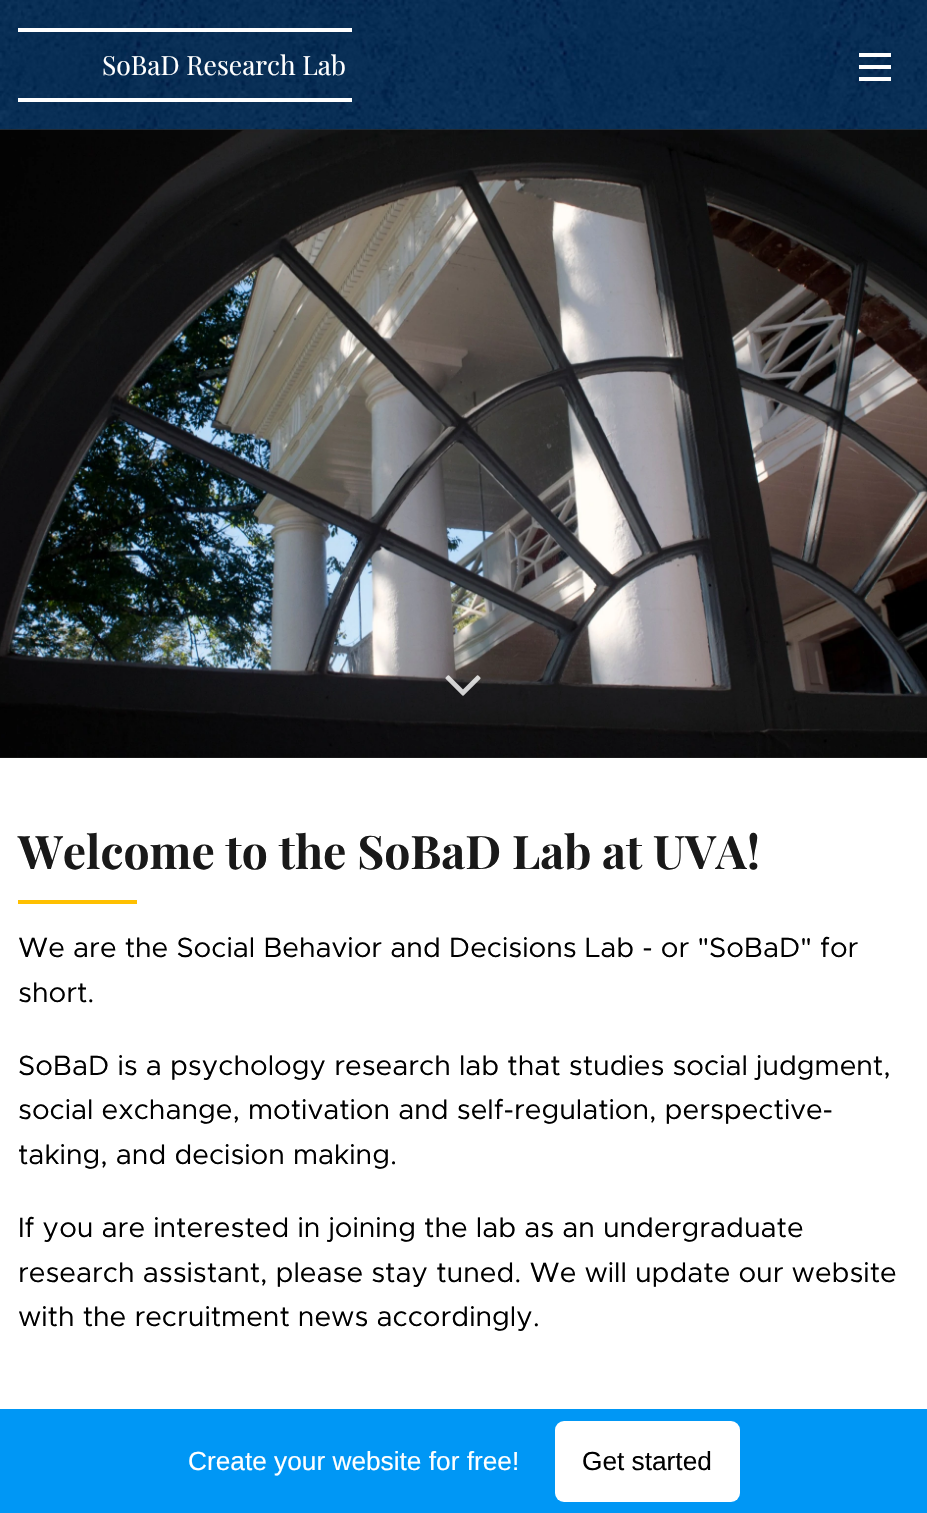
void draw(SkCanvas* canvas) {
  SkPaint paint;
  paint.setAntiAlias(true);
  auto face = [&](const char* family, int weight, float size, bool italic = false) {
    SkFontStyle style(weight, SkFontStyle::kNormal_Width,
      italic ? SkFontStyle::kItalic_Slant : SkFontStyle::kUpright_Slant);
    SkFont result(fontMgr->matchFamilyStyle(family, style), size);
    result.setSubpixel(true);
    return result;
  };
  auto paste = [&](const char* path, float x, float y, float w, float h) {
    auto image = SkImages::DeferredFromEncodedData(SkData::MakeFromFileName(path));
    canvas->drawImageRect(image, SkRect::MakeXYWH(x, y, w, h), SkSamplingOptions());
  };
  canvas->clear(0xffffffff);
  paint.setColor(0xff272727);
  canvas->drawRect(SkRect::MakeXYWH(0, 129, 927, 1), paint);
  paste("img/1.png", 0, 0, 927, 130);
  {
    const struct { float x, y, w, h; SkColor color; } items[] = {
      {18, 28, 334, 4, 0xffffffff},
      {18, 98, 334, 4, 0xffffffff},
      {859, 65, 32, 4, 0xffffffff},
      {859, 53, 32, 4, 0xffffffff},
      {859, 77, 32, 4, 0xffffffff},
      {0, 757, 927, 1, 0xff272727},
    };
    for (auto [x, y, w, h, color] : items) {
      paint.setColor(color);
      canvas->drawRect(SkRect::MakeXYWH(x, y, w, h), paint);
    }
  }
  paste("img/2.png", 0, 130, 927, 628);
  paste("img/3.png", 445, 675, 36, 21);
  paint.setColor(0xffffc000);
  canvas->drawRect(SkRect::MakeXYWH(18, 900, 119, 4), paint);
  paint.setColor(0xff0097f5);
  canvas->drawRect(SkRect::MakeXYWH(0, 1409, 927, 104), paint);
  paint.setColor(0xffffffff);
  canvas->drawRoundRect(SkRect::MakeXYWH(555, 1421, 185, 81), 9, 9, paint);
  auto f0 = face("Playfair Display", 400, 26.5f);
  canvas->drawString("SoBaD Research Lab", 102, 75, f0, paint);
  auto f1 = face("Playfair Display", 700, 46.25f);
  paint.setColor(0xff191919);
  canvas->drawString("Welcome to the SoBaD Lab at UVA!", 18, 869, f1, paint);
  auto f2 = face("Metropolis", 400, 28);
  paint.setColor(0xff000000);
  {
    const struct { const char* s; float x, y; } items[] = {
      {"We are the Social Behavior and Decisions Lab - or \"SoBaD\" for", 18, 957},
      {"short.", 18, 1002},
      {"SoBaD is a psychology research lab that studies social judgment,", 18, 1075},
      {"social exchange, motivation and self-regulation, perspective-", 18, 1119},
      {"taking, and decision making.", 18, 1164},
      {"If you are interested in joining the lab as an undergraduate", 18, 1237},
      {"research assistant, please stay tuned. We will update our website", 18, 1282},
      {"with the recruitment news accordingly.", 18, 1326},
    };
    for (auto [s, x, y] : items) {
      canvas->drawString(s, x, y, f2, paint);
    }
  }
  auto f3 = face("Liberation Sans", 400, 26.25f);
  paint.setColor(0xffffffff);
  canvas->drawString("Create your website for free!", 188, 1470, f3, paint);
  paint.setColor(0xff000000);
  canvas->drawString("Get started", 582, 1470, f3, paint);
}
